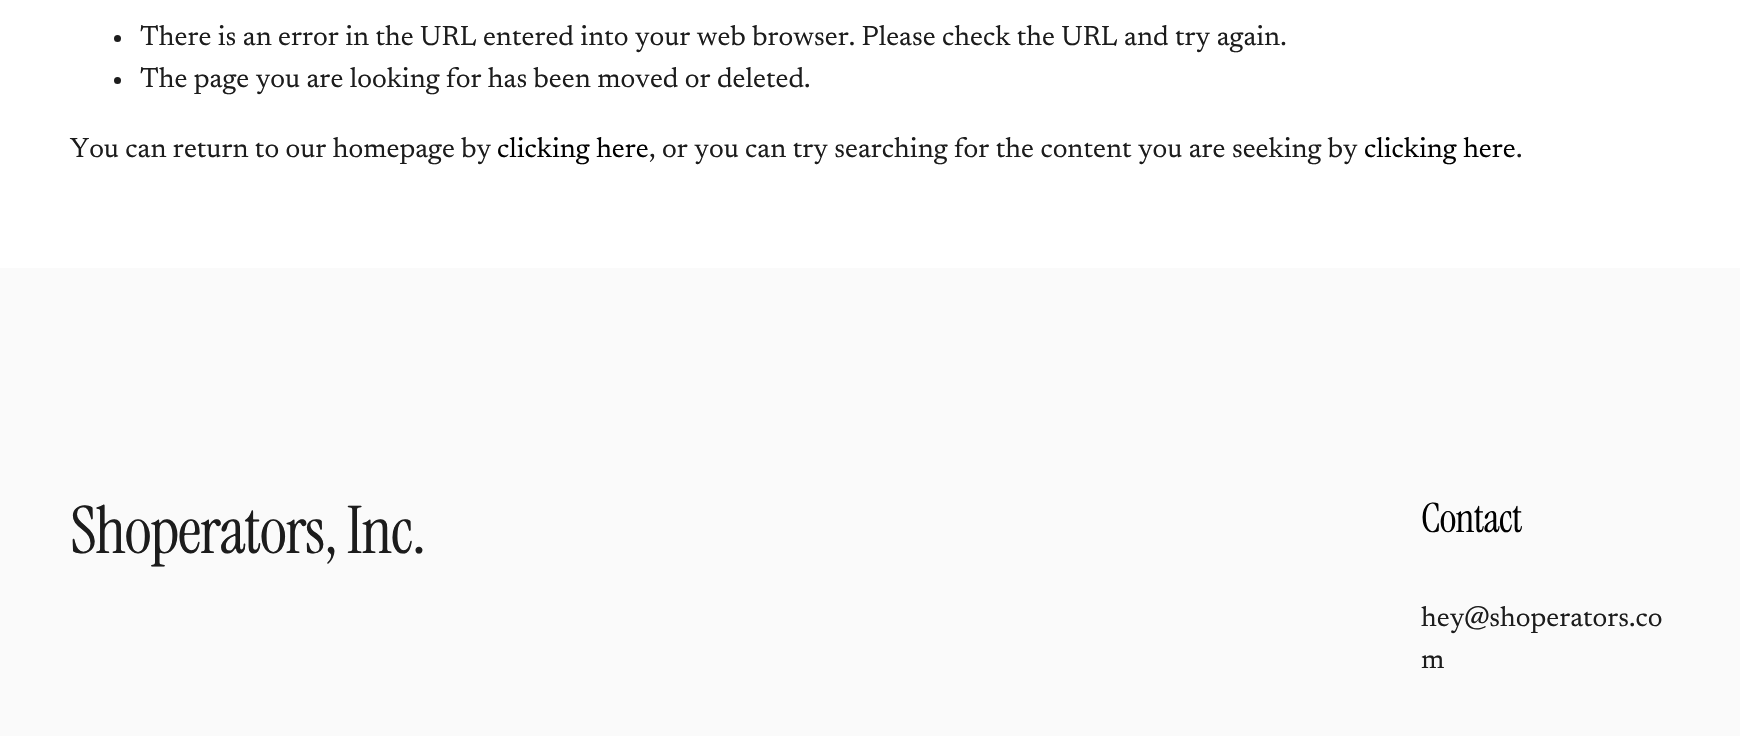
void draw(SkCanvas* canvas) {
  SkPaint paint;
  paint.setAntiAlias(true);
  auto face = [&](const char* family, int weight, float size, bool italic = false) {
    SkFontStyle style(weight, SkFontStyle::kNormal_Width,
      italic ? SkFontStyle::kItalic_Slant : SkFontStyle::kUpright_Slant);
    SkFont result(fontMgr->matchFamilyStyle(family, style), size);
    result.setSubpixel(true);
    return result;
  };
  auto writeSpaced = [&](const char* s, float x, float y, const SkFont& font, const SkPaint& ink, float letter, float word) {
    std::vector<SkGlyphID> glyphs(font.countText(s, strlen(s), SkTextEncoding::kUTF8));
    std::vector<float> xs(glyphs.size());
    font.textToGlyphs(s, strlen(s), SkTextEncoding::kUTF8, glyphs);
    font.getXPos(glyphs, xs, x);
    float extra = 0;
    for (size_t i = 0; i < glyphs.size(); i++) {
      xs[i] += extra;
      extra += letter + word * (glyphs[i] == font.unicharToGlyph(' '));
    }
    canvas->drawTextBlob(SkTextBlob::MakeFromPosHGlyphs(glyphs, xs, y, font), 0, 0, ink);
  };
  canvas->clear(0xffffffff);
  paint.setColor(0xff1c1c1c);
  canvas->drawCircle(117.5f, 38.5f, 3.5f, paint);
  canvas->drawCircle(117.5f, 80.5f, 3.5f, paint);
  paint.setColor(0xfffafafa);
  canvas->drawRect(SkRect::MakeXYWH(0, 268, 1740, 468), paint);
  auto f0 = face("Newsreader", 400, 28);
  paint.setColor(0xff1c1c1c);
  {
    const struct { const char* s; float x, y; } items[] = {
      {"There is an error in the URL entered into your web browser. Please check the URL and try again.", 140, 45},
      {"The page you are looking for has been moved or deleted.", 140, 87},
      {"You can return to our homepage by", 70, 157},
    };
    for (auto [s, x, y] : items) {
      canvas->drawString(s, x, y, f0, paint);
    }
  }
  paint.setColor(0xff000000);
  canvas->drawString("clicking here", 497, 157, f0, paint);
  paint.setColor(0xff1c1c1c);
  canvas->drawString(", or you can try searching for the content you are seeking by", 649, 157, f0, paint);
  paint.setColor(0xff000000);
  canvas->drawString("clicking here", 1364, 157, f0, paint);
  paint.setColor(0xff1c1c1c);
  canvas->drawString(".", 1516, 157, f0, paint);
  auto f1 = face("Instrument Serif", 400, 65.5f);
  writeSpaced("Shoperators, Inc.", 70, 553, f1, paint, -1.3f, 0);
  auto f2 = face("Instrument Serif", 400, 40.5f);
  paint.setColor(0xff000000);
  writeSpaced("Contact", 1421, 532, f2, paint, -0.75f, 0);
  paint.setColor(0xff1c1c1c);
  canvas->drawString("hey@shoperators.co", 1421, 626, f0, paint);
  canvas->drawString("m", 1421, 668, f0, paint);
}
